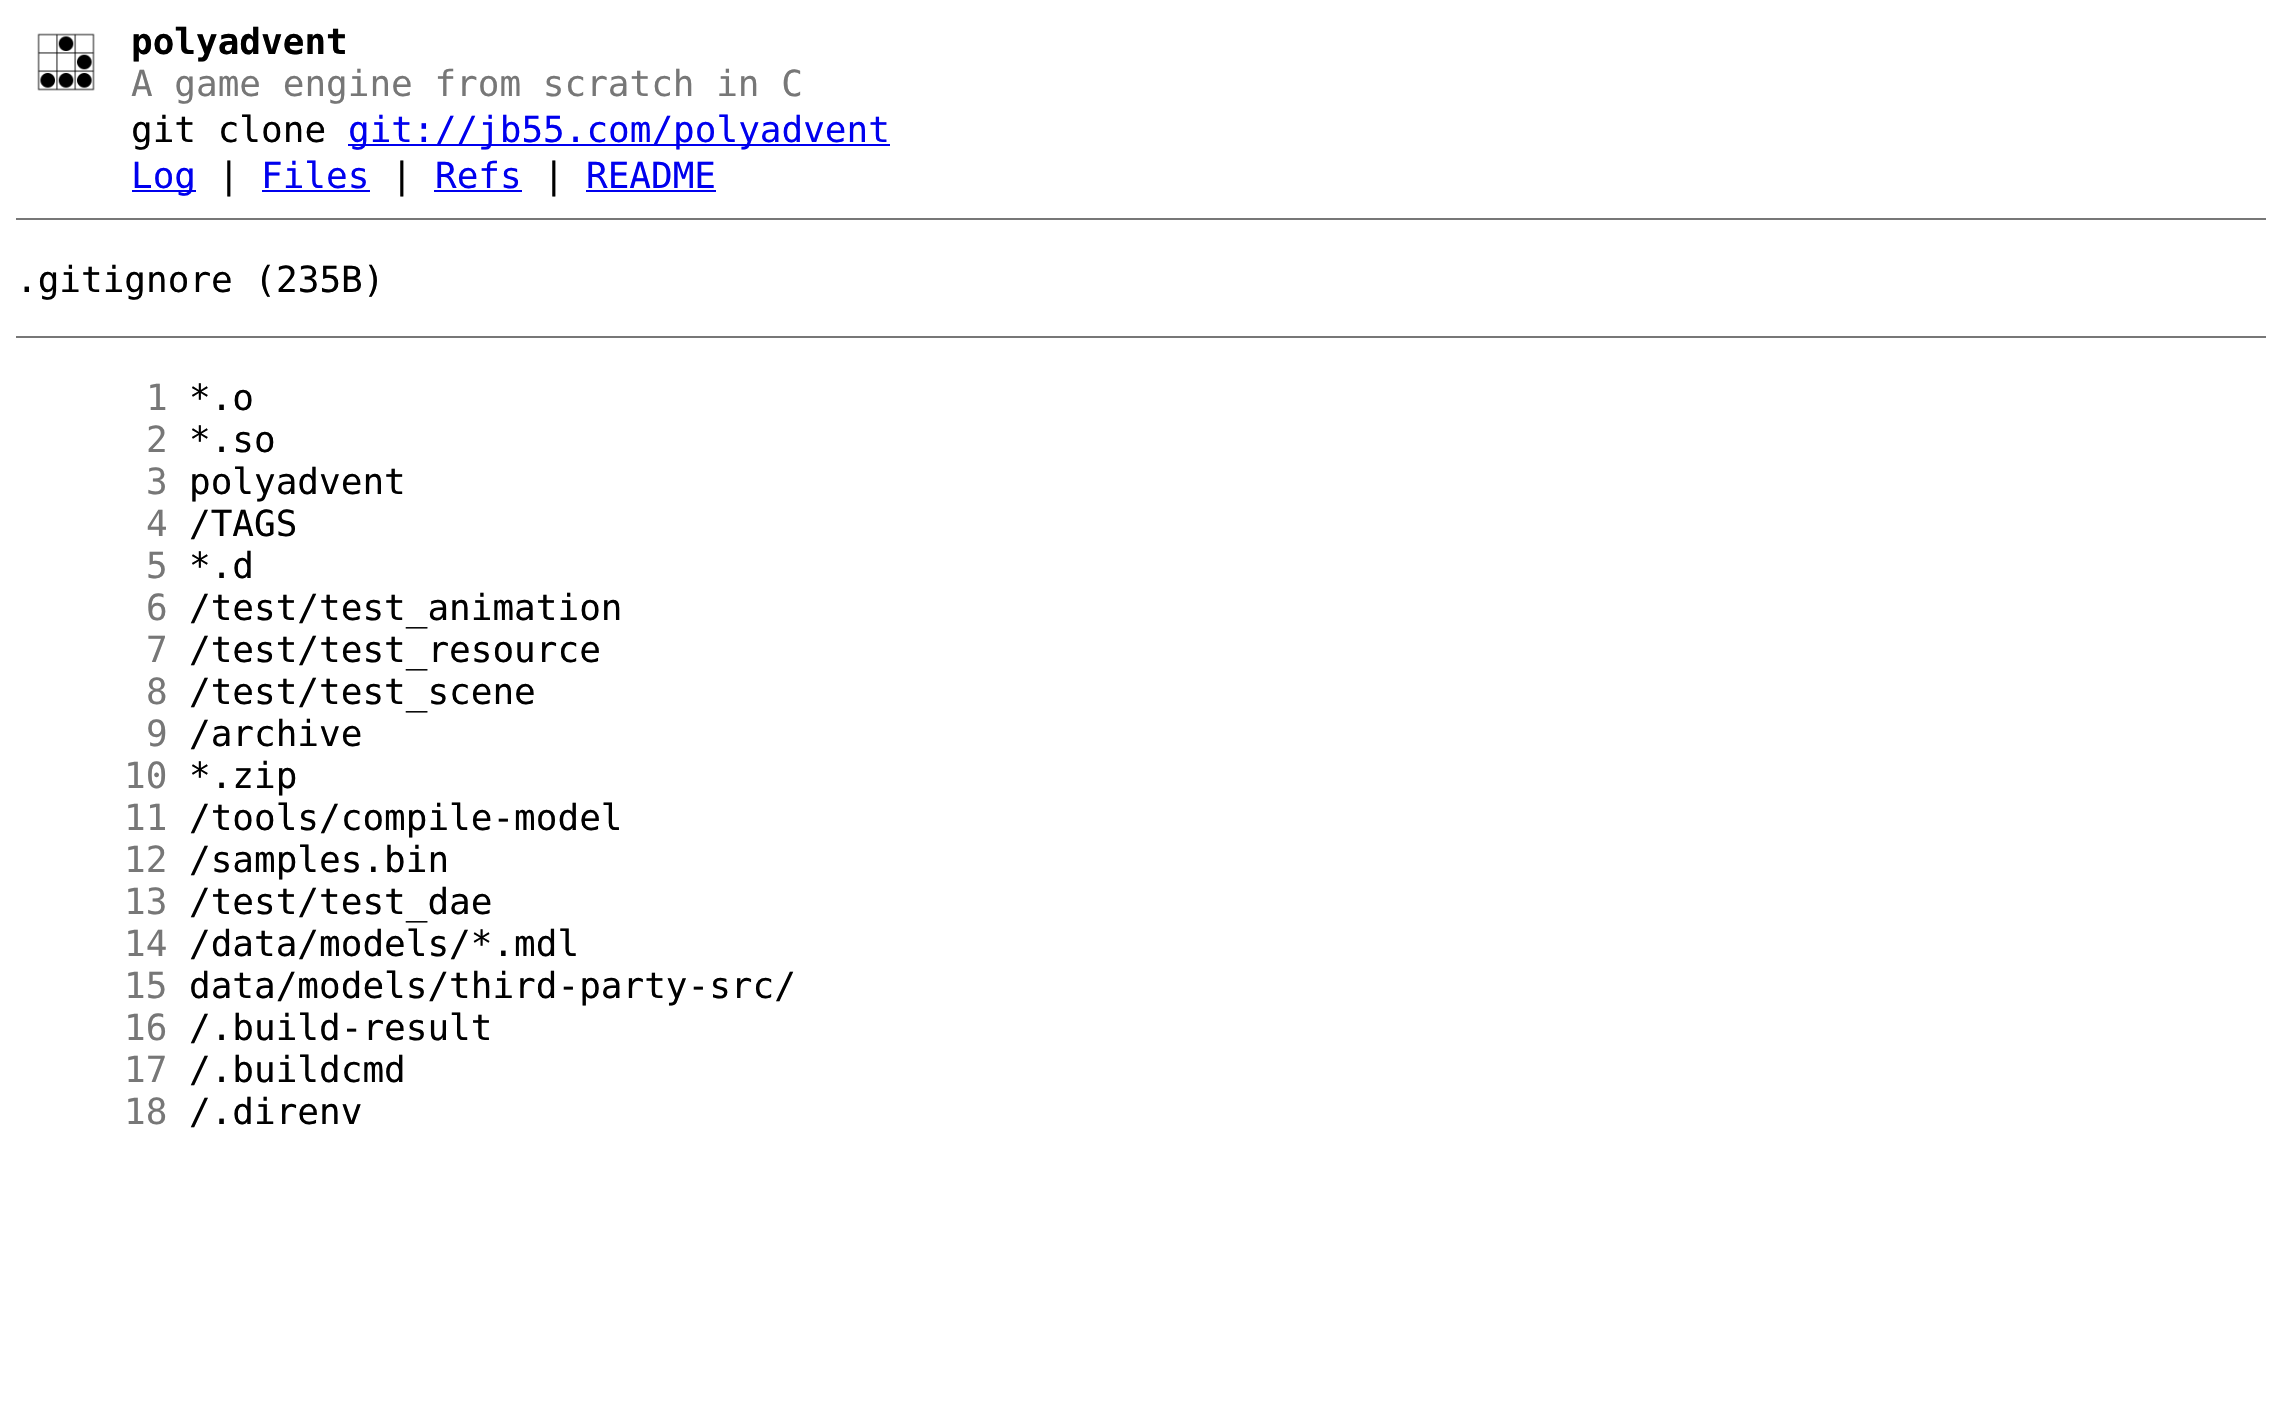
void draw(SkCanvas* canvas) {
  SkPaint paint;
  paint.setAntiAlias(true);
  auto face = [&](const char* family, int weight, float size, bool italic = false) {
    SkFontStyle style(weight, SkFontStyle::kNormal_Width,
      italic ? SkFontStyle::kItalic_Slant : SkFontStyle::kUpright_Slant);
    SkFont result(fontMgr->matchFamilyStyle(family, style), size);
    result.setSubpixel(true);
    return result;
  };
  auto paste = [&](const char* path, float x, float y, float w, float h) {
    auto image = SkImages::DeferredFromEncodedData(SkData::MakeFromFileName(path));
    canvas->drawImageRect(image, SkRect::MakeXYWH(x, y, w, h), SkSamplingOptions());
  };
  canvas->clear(0xffffffff);
  paste("img/1.png", 37, 33, 58, 58);
  {
    const struct { float x, y, w, h; SkColor color; } items[] = {
      {348, 144, 542, 2, 0xff0000ee},
      {132, 190, 64, 2, 0xff0000ee},
      {262, 190, 108, 2, 0xff0000ee},
      {434, 190, 88, 2, 0xff0000ee},
      {586, 190, 130, 2, 0xff0000ee},
      {16, 218, 2250, 2, 0xff777777},
      {16, 336, 2250, 2, 0xff777777},
    };
    for (auto [x, y, w, h, color] : items) {
      paint.setColor(color);
      canvas->drawRect(SkRect::MakeXYWH(x, y, w, h), paint);
    }
  }
  auto f0 = face("DejaVu Sans Mono", 700, 36);
  paint.setColor(0xff000000);
  canvas->drawString("polyadvent", 131, 54, f0, paint);
  auto f1 = face("DejaVu Sans Mono", 400, 36);
  paint.setColor(0xff777777);
  canvas->drawString("A game engine from scratch in C", 131, 96, f1, paint);
  paint.setColor(0xff000000);
  canvas->drawString("git clone", 131, 142, f1, paint);
  paint.setColor(0xff0000ee);
  canvas->drawString("git://jb55.com/polyadvent", 348, 142, f1, paint);
  canvas->drawString("Log", 131, 188, f1, paint);
  paint.setColor(0xff000000);
  canvas->drawString("|", 218, 188, f1, paint);
  paint.setColor(0xff0000ee);
  canvas->drawString("Files", 261, 188, f1, paint);
  paint.setColor(0xff000000);
  canvas->drawString("|", 391, 188, f1, paint);
  paint.setColor(0xff0000ee);
  canvas->drawString("Refs", 435, 188, f1, paint);
  paint.setColor(0xff000000);
  canvas->drawString("|", 543, 188, f1, paint);
  paint.setColor(0xff0000ee);
  canvas->drawString("README", 586, 188, f1, paint);
  paint.setColor(0xff000000);
  canvas->drawString(".gitignore (235B)", 16, 292, f1, paint);
  paint.setColor(0xff777777);
  canvas->drawString("1", 146, 410, f1, paint);
  paint.setColor(0xff000000);
  canvas->drawString("*.o", 189, 410, f1, paint);
  paint.setColor(0xff777777);
  canvas->drawString("2", 146, 452, f1, paint);
  paint.setColor(0xff000000);
  canvas->drawString("*.so", 189, 452, f1, paint);
  paint.setColor(0xff777777);
  canvas->drawString("3", 146, 494, f1, paint);
  paint.setColor(0xff000000);
  canvas->drawString("polyadvent", 189, 494, f1, paint);
  paint.setColor(0xff777777);
  canvas->drawString("4", 146, 536, f1, paint);
  paint.setColor(0xff000000);
  canvas->drawString("/TAGS", 189, 536, f1, paint);
  paint.setColor(0xff777777);
  canvas->drawString("5", 146, 578, f1, paint);
  paint.setColor(0xff000000);
  canvas->drawString("*.d", 189, 578, f1, paint);
  paint.setColor(0xff777777);
  canvas->drawString("6", 146, 620, f1, paint);
  paint.setColor(0xff000000);
  canvas->drawString("/test/test_animation", 189, 620, f1, paint);
  paint.setColor(0xff777777);
  canvas->drawString("7", 146, 662, f1, paint);
  paint.setColor(0xff000000);
  canvas->drawString("/test/test_resource", 189, 662, f1, paint);
  paint.setColor(0xff777777);
  canvas->drawString("8", 146, 704, f1, paint);
  paint.setColor(0xff000000);
  canvas->drawString("/test/test_scene", 189, 704, f1, paint);
  paint.setColor(0xff777777);
  canvas->drawString("9", 146, 746, f1, paint);
  paint.setColor(0xff000000);
  canvas->drawString("/archive", 189, 746, f1, paint);
  paint.setColor(0xff777777);
  canvas->drawString("10", 124, 788, f1, paint);
  paint.setColor(0xff000000);
  canvas->drawString("*.zip", 189, 788, f1, paint);
  paint.setColor(0xff777777);
  canvas->drawString("11", 124, 830, f1, paint);
  paint.setColor(0xff000000);
  canvas->drawString("/tools/compile-model", 189, 830, f1, paint);
  paint.setColor(0xff777777);
  canvas->drawString("12", 124, 872, f1, paint);
  paint.setColor(0xff000000);
  canvas->drawString("/samples.bin", 189, 872, f1, paint);
  paint.setColor(0xff777777);
  canvas->drawString("13", 124, 914, f1, paint);
  paint.setColor(0xff000000);
  canvas->drawString("/test/test_dae", 189, 914, f1, paint);
  paint.setColor(0xff777777);
  canvas->drawString("14", 124, 956, f1, paint);
  paint.setColor(0xff000000);
  canvas->drawString("/data/models/*.mdl", 189, 956, f1, paint);
  paint.setColor(0xff777777);
  canvas->drawString("15", 124, 998, f1, paint);
  paint.setColor(0xff000000);
  canvas->drawString("data/models/third-party-src/", 189, 998, f1, paint);
  paint.setColor(0xff777777);
  canvas->drawString("16", 124, 1040, f1, paint);
  paint.setColor(0xff000000);
  canvas->drawString("/.build-result", 189, 1040, f1, paint);
  paint.setColor(0xff777777);
  canvas->drawString("17", 124, 1082, f1, paint);
  paint.setColor(0xff000000);
  canvas->drawString("/.buildcmd", 189, 1082, f1, paint);
  paint.setColor(0xff777777);
  canvas->drawString("18", 124, 1124, f1, paint);
  paint.setColor(0xff000000);
  canvas->drawString("/.direnv", 189, 1124, f1, paint);
}
